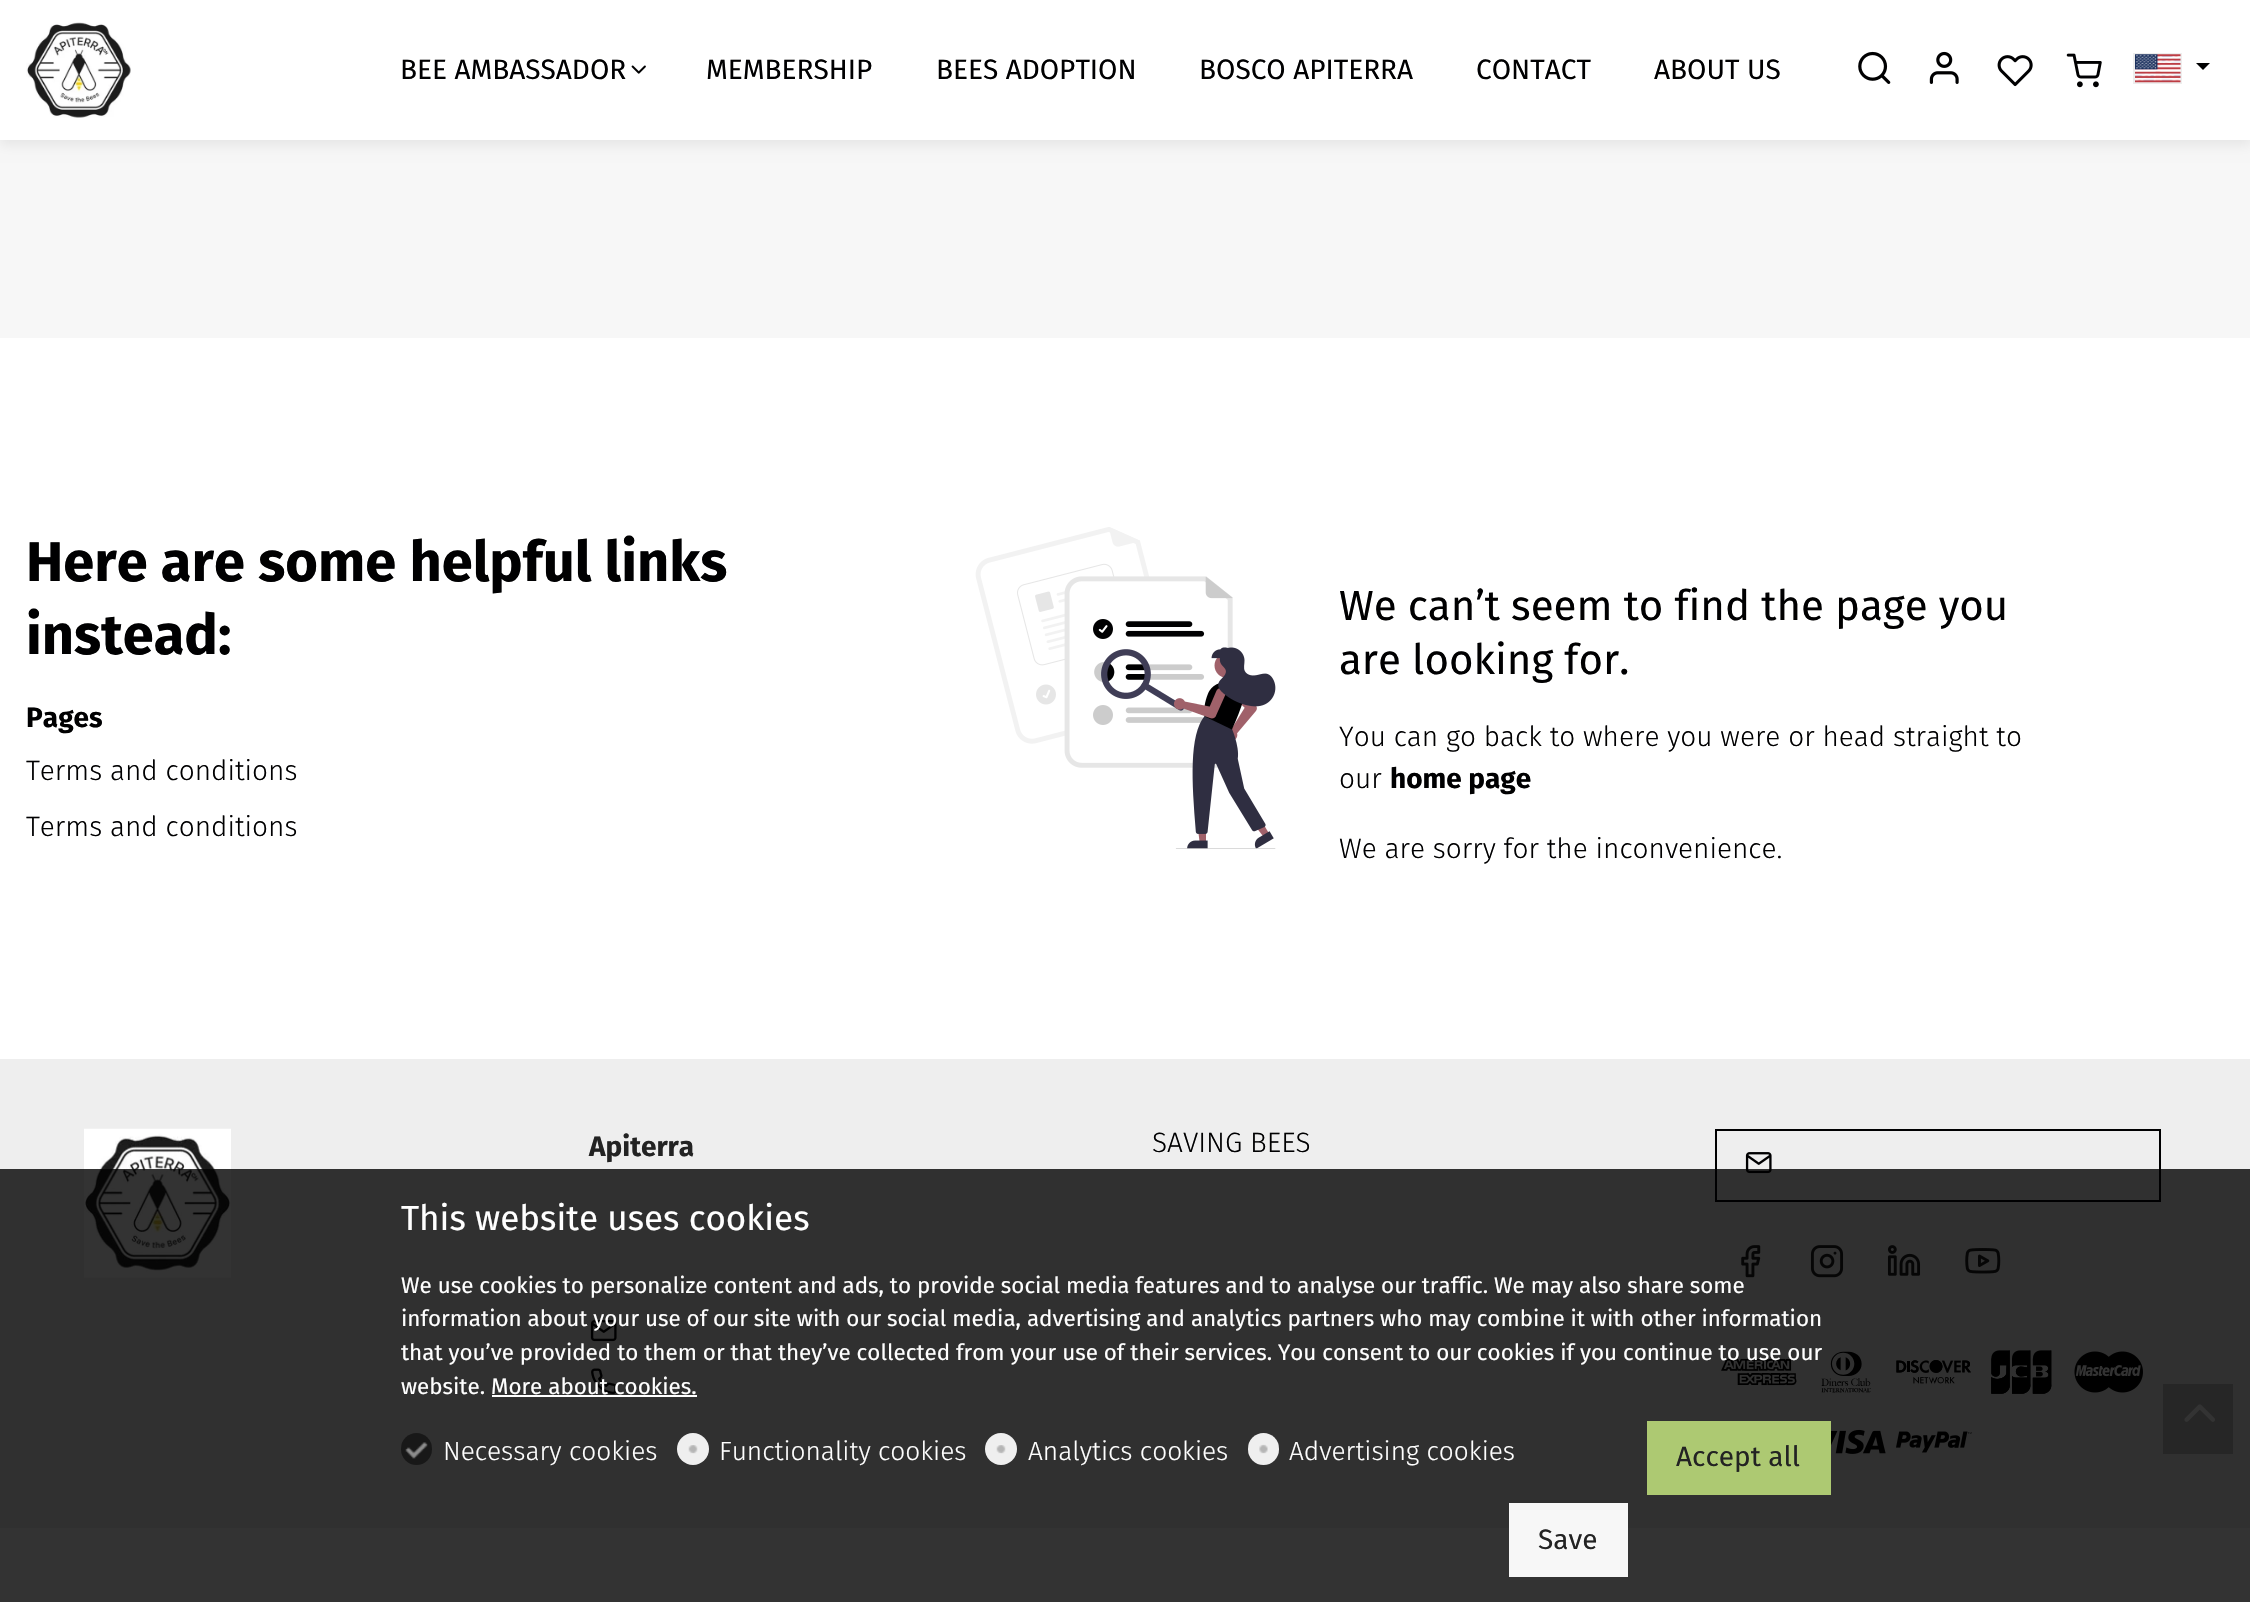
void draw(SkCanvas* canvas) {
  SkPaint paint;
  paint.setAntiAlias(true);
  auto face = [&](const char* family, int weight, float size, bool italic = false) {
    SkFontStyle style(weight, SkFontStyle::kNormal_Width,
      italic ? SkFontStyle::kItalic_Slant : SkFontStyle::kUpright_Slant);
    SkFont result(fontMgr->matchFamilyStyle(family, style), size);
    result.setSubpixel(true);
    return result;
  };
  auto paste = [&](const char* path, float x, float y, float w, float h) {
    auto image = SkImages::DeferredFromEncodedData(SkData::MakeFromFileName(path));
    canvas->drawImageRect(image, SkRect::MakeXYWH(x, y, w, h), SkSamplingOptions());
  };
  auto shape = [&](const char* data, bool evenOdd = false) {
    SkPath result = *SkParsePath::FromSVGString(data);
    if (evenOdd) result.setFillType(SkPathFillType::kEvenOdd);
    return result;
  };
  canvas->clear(0xffffffff);
  paint.setColor(0xfff7f7f7);
  canvas->drawRect(SkRect::MakeXYWH(0, 140, 2250, 198), paint);
  paint.setColor(0x12000000);
  paint.setMaskFilter(SkMaskFilter::MakeBlur(kNormal_SkBlurStyle, 6));
  canvas->drawRect(SkRect::MakeXYWH(0, 5, 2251, 140), paint);
  paint.setMaskFilter(nullptr);
  paint.setColor(0xffffffff);
  canvas->drawRect(SkRect::MakeXYWH(0, 0, 2250, 140), paint);
  paste("img/1.png", 26, 22, 105, 96);
  paste("img/2.png", 631, 65, 15, 9);
  paste("img/3.png", 1858, 51, 33, 33);
  paste("img/4.png", 1929, 51, 30, 33);
  paste("img/5.png", 1997, 55, 36, 32);
  paste("img/6.png", 2066, 53, 36, 35);
  paint.setStroke(true);
  paint.setStrokeWidth(2);
  paint.setColor(0xffeeeeee);
  canvas->drawRect(SkRect::MakeXYWH(2134, 54, 47, 29), paint);
  paste("img/7.png", 2135, 54, 46, 29);
  paint.setStroke(false);
  paint.setColor(0xff000001);
  canvas->drawPath(shape("M2196 63H2210L2203 70Z"), paint);
  paste("img/8.png", 975, 527, 301, 322);
  paint.setColor(0xffeeeeee);
  canvas->drawRect(SkRect::MakeXYWH(0, 1059, 2250, 469), paint);
  paste("img/9.png", 84, 1128, 147, 150);
  paste("img/10.png", 590, 1320, 27, 22);
  paste("img/11.png", 591, 1368, 26, 27);
  paint.setStroke(true);
  paint.setColor(0xff000001);
  canvas->drawRect(SkRect::MakeXYWH(1716, 1130, 444, 71), paint);
  paste("img/10.png", 1745, 1152, 27, 22);
  paste("img/12.png", 1741, 1245, 20, 33);
  paste("img/13.png", 1810, 1245, 34, 33);
  paste("img/14.png", 1887, 1245, 34, 31);
  paste("img/15.png", 1965, 1248, 36, 26);
  paste("img/16.png", 1721, 1358, 76, 28);
  paste("img/17.png", 1821, 1351, 50, 42);
  paste("img/18.png", 1896, 1360, 75, 24);
  paste("img/19.png", 1991, 1350, 61, 44);
  paste("img/20.png", 2074, 1351, 69, 42);
  paste("img/21.png", 1831, 1429, 55, 25);
  paste("img/22.png", 1896, 1431, 76, 22);
  paint.setStroke(false);
  paint.setColor(0xffbcbcbc);
  canvas->drawRect(SkRect::MakeXYWH(2163, 1384, 70, 70), paint);
  paste("img/26.png", 2184, 1404, 31, 18);
  paint.setColor(0xcc000000);
  canvas->drawRect(SkRect::MakeXYWH(0, 1169, 2250, 433), paint);
  paint.setColor(0xffffffff);
  canvas->drawRect(SkRect::MakeXYWH(492, 1395, 205, 2), paint);
  paint.setColor(0xff181818);
  canvas->drawRoundRect(SkRect::MakeXYWH(401, 1433, 31, 32), 15.5f, 15.5f, paint);
  paste("img/23.png", 405, 1442, 23, 17);
  paint.setColor(0xffefefef);
  canvas->drawCircle(693, 1449, 16, paint);
  paste("img/24.png", 688, 1445, 10, 9);
  canvas->drawCircle(1001, 1449, 16, paint);
  paste("img/24.png", 996, 1445, 10, 9);
  canvas->drawRoundRect(SkRect::MakeXYWH(1248, 1433, 31, 32), 15.5f, 15.5f, paint);
  paste("img/25.png", 1259, 1444, 9, 10);
  paint.setColor(0xffadc972);
  canvas->drawRect(SkRect::MakeXYWH(1647, 1421, 184, 74), paint);
  paint.setColor(0xfff7f7f7);
  canvas->drawRect(SkRect::MakeXYWH(1509, 1503, 119, 74), paint);
  auto f0 = face("Fira Sans", 400, 28);
  paint.setColor(0xff000001);
  {
    const struct { const char* s; float x, y; } items[] = {
      {"BEE AMBASSADOR", 400, 79},
      {"MEMBERSHIP", 706, 79},
      {"BEES ADOPTION", 936, 79},
      {"BOSCO APITERRA", 1199, 79},
      {"CONTACT", 1476, 79},
      {"ABOUT US", 1654, 79},
    };
    for (auto [s, x, y] : items) {
      canvas->drawString(s, x, y, f0, paint);
    }
  }
  auto f1 = face("Fira Sans", 700, 56);
  canvas->drawString("Here are some helpful links", 26, 581, f1, paint);
  canvas->drawString("instead:", 26, 654, f1, paint);
  auto f2 = face("Fira Sans", 700, 28);
  canvas->drawString("Pages", 26, 727, f2, paint);
  auto f3 = face("Fira Sans", 300, 28);
  canvas->drawString("Terms and conditions", 26, 780, f3, paint);
  canvas->drawString("Terms and conditions", 26, 836, f3, paint);
  auto f4 = face("Fira Sans", 400, 42);
  canvas->drawString("We can’t seem to find the page you", 1339, 620, f4, paint);
  canvas->drawString("are looking for.", 1339, 674, f4, paint);
  canvas->drawString("You can go back to where you were or head straight to", 1339, 746, f3, paint);
  canvas->drawString("our", 1339, 788, f3, paint);
  canvas->drawString("home page", 1390, 788, f2, paint);
  canvas->drawString("We are sorry for the inconvenience.", 1339, 858, f3, paint);
  paint.setColor(0xff232323);
  canvas->drawString("Apiterra", 589, 1156, f2, paint);
  paint.setColor(0xff000001);
  canvas->drawString("SAVING BEES", 1152, 1152, f3, paint);
  auto f5 = face("Fira Sans", 400, 35);
  paint.setColor(0xffffffff);
  canvas->drawString("This website uses cookies", 401, 1230, f5, paint);
  auto f6 = face("Fira Sans", 400, 22.4f);
  {
    const struct { const char* s; float x, y; } items[] = {
      {"We use cookies to personalize content and ads, to provide social media features and to analyse our traffic. We may also share some", 401, 1293},
      {"information about your use of our site with our social media, advertising and analytics partners who may combine it with other information", 401, 1326},
      {"that you’ve provided to them or that they’ve collected from your use of their services. You consent to our cookies if you continue to use our", 401, 1360},
      {"website. More about cookies.", 401, 1394},
    };
    for (auto [s, x, y] : items) {
      canvas->drawString(s, x, y, f6, paint);
    }
  }
  auto f7 = face("Fira Sans", 300, 26.25f);
  {
    const struct { const char* s; float x, y; } items[] = {
      {"Necessary cookies", 443, 1460},
      {"Functionality cookies", 719, 1460},
      {"Analytics cookies", 1028, 1460},
      {"Advertising cookies", 1289, 1460},
    };
    for (auto [s, x, y] : items) {
      canvas->drawString(s, x, y, f7, paint);
    }
  }
  paint.setColor(0xff232323);
  canvas->drawString("Accept all", 1676, 1466, f0, paint);
  canvas->drawString("Save", 1538, 1549, f0, paint);
}
